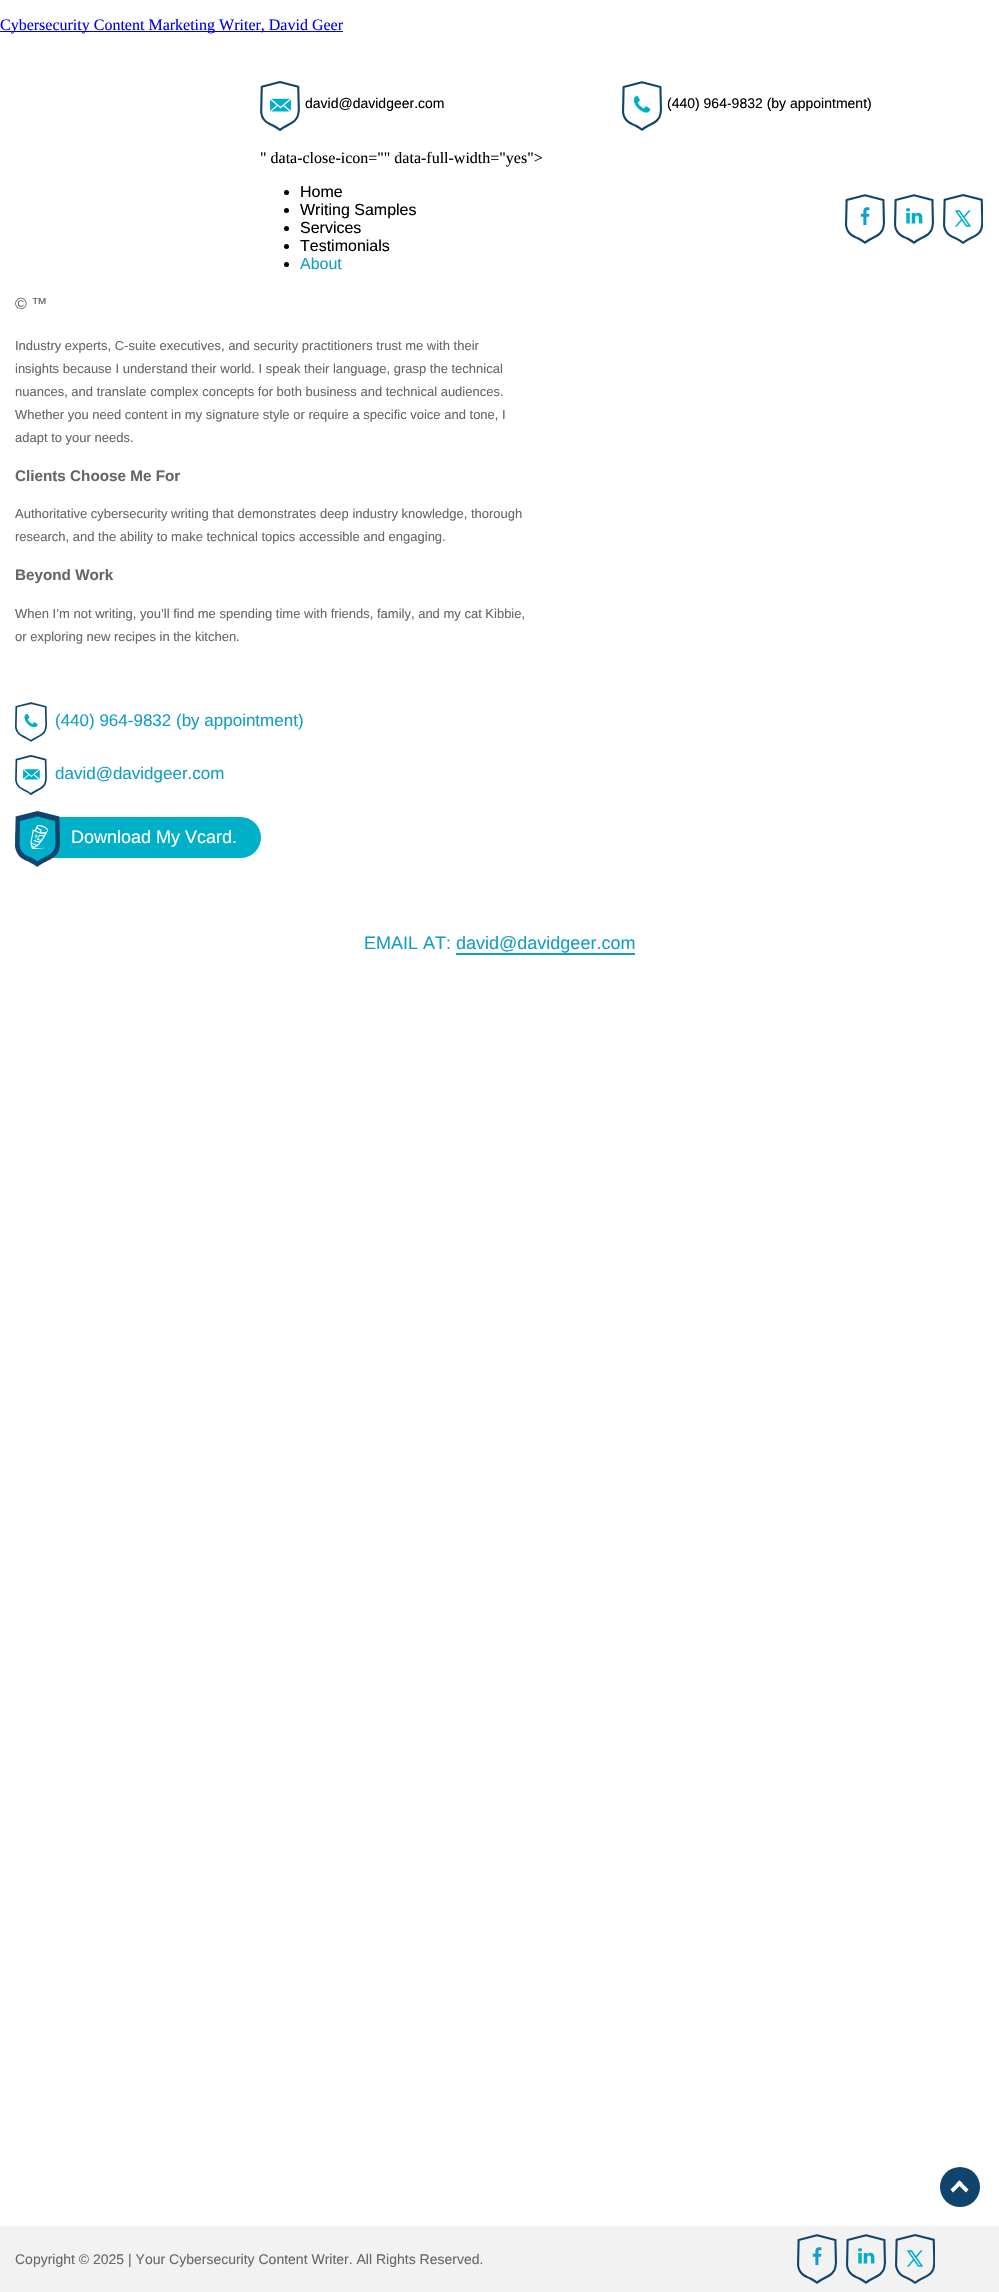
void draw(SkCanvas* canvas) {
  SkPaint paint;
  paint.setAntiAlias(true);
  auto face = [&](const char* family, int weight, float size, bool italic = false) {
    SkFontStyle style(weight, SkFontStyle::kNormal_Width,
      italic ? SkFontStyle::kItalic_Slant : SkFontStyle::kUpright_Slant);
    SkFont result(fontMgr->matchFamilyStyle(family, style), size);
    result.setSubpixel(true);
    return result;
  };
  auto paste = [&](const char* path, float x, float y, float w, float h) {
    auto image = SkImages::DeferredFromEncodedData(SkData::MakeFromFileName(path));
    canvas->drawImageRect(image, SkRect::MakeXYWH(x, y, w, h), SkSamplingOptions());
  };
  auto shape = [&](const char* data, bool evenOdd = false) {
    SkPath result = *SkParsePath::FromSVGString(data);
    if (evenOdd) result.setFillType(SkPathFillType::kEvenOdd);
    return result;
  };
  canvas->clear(0xffffffff);
  paint.setColor(0xff0000ee);
  canvas->drawRect(SkRect::MakeXYWH(0, 31, 343, 1), paint);
  paste("img/1.png", 260, 81, 40, 50);
  paste("img/2.png", 622, 81, 40, 50);
  paint.setColor(0xff000000);
  canvas->drawCircle(286.5f, 192.5f, 2.5f, paint);
  canvas->drawCircle(286.5f, 210.5f, 2.5f, paint);
  canvas->drawCircle(286.5f, 228.5f, 2.5f, paint);
  canvas->drawCircle(286.5f, 246.5f, 2.5f, paint);
  canvas->drawCircle(286.5f, 264.5f, 2.5f, paint);
  paste("img/3.png", 845, 194, 40, 50);
  paste("img/4.png", 894, 194, 40, 50);
  paste("img/5.png", 943, 194, 40, 50);
  paste("img/6.png", 15, 702, 32, 40);
  paste("img/7.png", 15, 755, 32, 40);
  paint.setColor(0xff00afc8);
  canvas->drawRoundRect(SkRect::MakeXYWH(15, 817, 246, 41), 20.5f, 20.5f, paint);
  paste("img/8.png", 15, 811, 45, 56);
  paint.setColor(0xff139ec5);
  canvas->drawRect(SkRect::MakeXYWH(456, 953, 179, 2), paint);
  paint.setColor(0xfff2f2f2);
  canvas->drawRect(SkRect::MakeXYWH(0, 2226, 999, 66), paint);
  paint.setColor(0xff10446c);
  canvas->drawCircle(960, 2187, 20, paint);
  paint.setColor(0xffffffff);
  canvas->drawPath(shape("M959.5 2180.5L968.5 2189.5L966 2192.5L956.5 2183Z"), paint);
  canvas->drawPath(shape("M959.5 2180.5L962.5 2183L953 2192.5L950.5 2189.5Z"), paint);
  paste("img/9.png", 797, 2234, 40, 50);
  paste("img/10.png", 846, 2234, 40, 50);
  paste("img/11.png", 895, 2234, 40, 50);
  auto f0 = face("Liberation Serif", 400, 16);
  paint.setColor(0xff0000ee);
  canvas->drawString("Cybersecurity Content Marketing Writer, David Geer", 0, 30, f0, paint);
  auto f1 = face("Liberation Sans", 400, 14);
  paint.setColor(0xff000000);
  canvas->drawString("david@davidgeer.com", 305, 108, f1, paint);
  canvas->drawString("(440) 964-9832 (by appointment)", 667, 108, f1, paint);
  canvas->drawString("\" data-close-icon=\"\" data-full-width=\"yes\">", 260, 163, f0, paint);
  auto f2 = face("Liberation Sans", 400, 16);
  {
    const struct { const char* s; float x, y; } items[] = {
      {"Home", 300, 197},
      {"Writing Samples", 300, 215},
      {"Services", 300, 233},
      {"Testimonials", 300, 251},
    };
    for (auto [s, x, y] : items) {
      canvas->drawString(s, x, y, f2, paint);
    }
  }
  paint.setColor(0xff139ec5);
  canvas->drawString("About", 300, 269, f2, paint);
  paint.setColor(0xff666666);
  canvas->drawString("© ™", 15, 309, f2, paint);
  auto f3 = face("Liberation Sans", 400, 13);
  {
    const struct { const char* s; float x, y; } items[] = {
      {"Industry experts, C-suite executives, and security practitioners trust me with their", 15, 350},
      {"insights because I understand their world. I speak their language, grasp the technical", 15, 373},
      {"nuances, and translate complex concepts for both business and technical audiences.", 15, 396},
      {"Whether you need content in my signature style or require a specific voice and tone, I", 15, 419},
      {"adapt to your needs.", 15, 442},
    };
    for (auto [s, x, y] : items) {
      canvas->drawString(s, x, y, f3, paint);
    }
  }
  auto f4 = face("Liberation Sans", 700, 15.25f);
  canvas->drawString("Clients Choose Me For", 15, 481, f4, paint);
  canvas->drawString("Authoritative cybersecurity writing that demonstrates deep industry knowledge, thorough", 15, 518, f3, paint);
  canvas->drawString("research, and the ability to make technical topics accessible and engaging.", 15, 541, f3, paint);
  canvas->drawString("Beyond Work", 15, 580, f4, paint);
  canvas->drawString("When I’m not writing, you’ll find me spending time with friends, family, and my cat Kibbie,", 15, 618, f3, paint);
  canvas->drawString("or exploring new recipes in the kitchen.", 15, 641, f3, paint);
  auto f5 = face("Liberation Sans", 400, 17);
  paint.setColor(0xff139ec5);
  canvas->drawString("(440) 964-9832 (by appointment)", 55, 726, f5, paint);
  canvas->drawString("david@davidgeer.com", 55, 779, f5, paint);
  auto f6 = face("Liberation Sans", 400, 18);
  paint.setColor(0xffffffff);
  canvas->drawString("Download My Vcard.", 71, 843, f6, paint);
  paint.setColor(0xff139ec5);
  canvas->drawString("EMAIL AT: david@davidgeer.com", 364, 949, f6, paint);
  paint.setColor(0xff666666);
  canvas->drawString("Copyright © 2025 | Your Cybersecurity Content Writer. All Rights Reserved.", 15, 2264, f1, paint);
}
